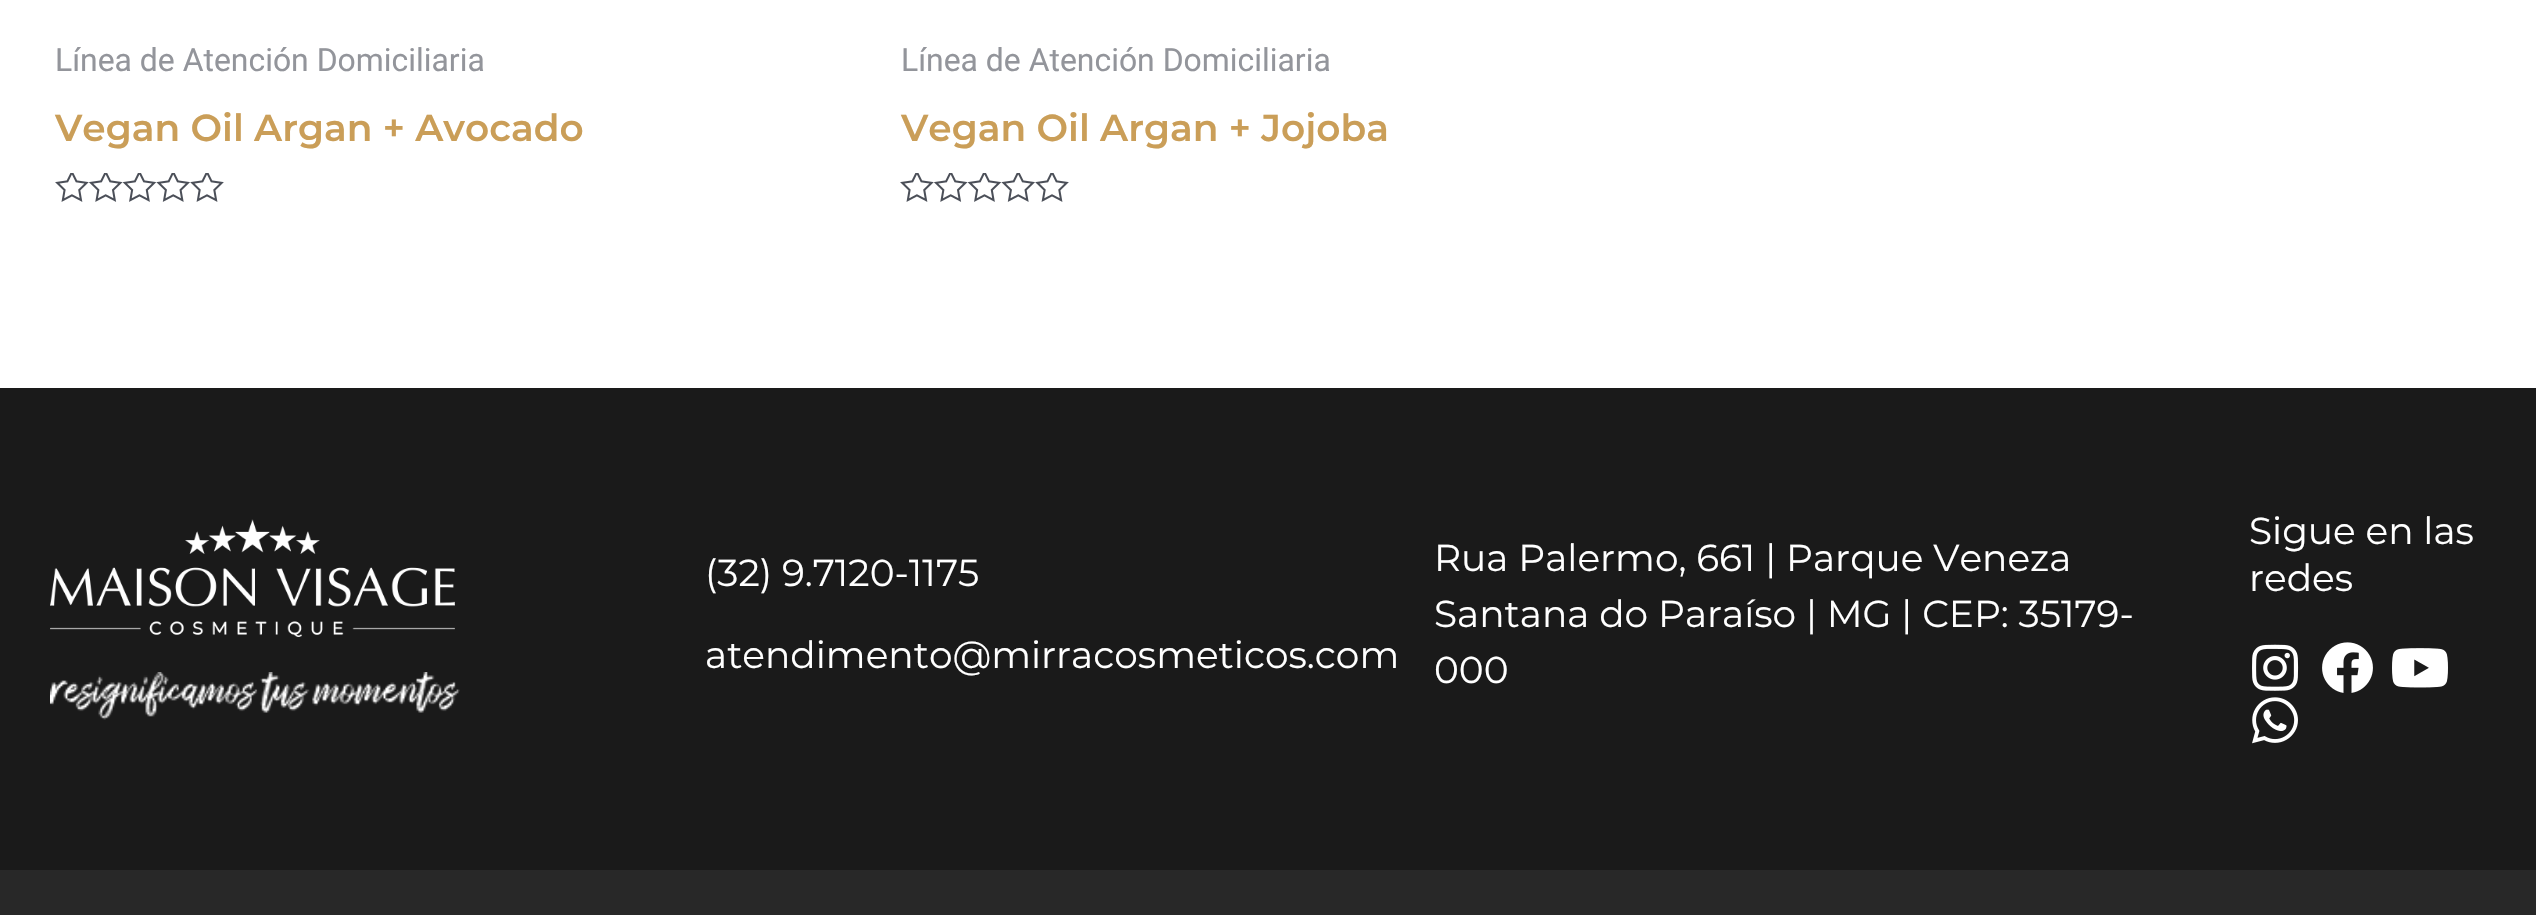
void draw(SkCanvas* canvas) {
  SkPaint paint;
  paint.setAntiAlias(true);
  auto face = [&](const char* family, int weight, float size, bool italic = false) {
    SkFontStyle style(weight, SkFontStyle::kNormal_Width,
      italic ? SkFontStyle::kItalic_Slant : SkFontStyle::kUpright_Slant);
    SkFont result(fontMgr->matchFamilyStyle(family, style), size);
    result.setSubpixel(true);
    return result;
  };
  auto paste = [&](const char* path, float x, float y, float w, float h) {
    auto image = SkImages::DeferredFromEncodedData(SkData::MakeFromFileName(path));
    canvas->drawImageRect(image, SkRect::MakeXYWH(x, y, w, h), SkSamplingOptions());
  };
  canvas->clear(0xffffffff);
  paste("img/1.png", 55, 173, 169, 29);
  paste("img/1.png", 900, 173, 169, 29);
  paint.setColor(0xff1a1a1a);
  canvas->drawRect(SkRect::MakeXYWH(0, 388, 2536, 482), paint);
  paste("img/2.png", 50, 519, 405, 118);
  paste("img/3.png", 50, 672, 410, 48);
  paste("img/4.png", 2252, 644, 47, 47);
  paste("img/5.png", 2322, 642, 51, 51);
  paste("img/6.png", 2392, 648, 56, 40);
  paste("img/7.png", 2252, 697, 46, 47);
  paint.setColor(0xff282828);
  canvas->drawRect(SkRect::MakeXYWH(0, 870, 2536, 45), paint);
  auto f0 = face("Roboto", 400, 31.9f);
  paint.setColor(0xff93959b);
  canvas->drawString("Línea de Atención Domiciliaria", 55, 71, f0, paint);
  auto f1 = face("Montserrat", 600, 37.5f);
  paint.setColor(0xffca9e58);
  canvas->drawString("Vegan Oil Argan + Avocado", 55, 141, f1, paint);
  paint.setColor(0xff93959b);
  canvas->drawString("Línea de Atención Domiciliaria", 901, 71, f0, paint);
  paint.setColor(0xffca9e58);
  canvas->drawString("Vegan Oil Argan + Jojoba", 901, 141, f1, paint);
  auto f2 = face("Montserrat", 400, 37.5f);
  paint.setColor(0xffffffff);
  {
    const struct { const char* s; float x, y; } items[] = {
      {"(32) 9.7120-1175", 705, 586},
      {"atendimento@mirracosmeticos.com", 705, 668},
      {"Rua Palermo, 661 | Parque Veneza", 1434, 571},
      {"Santana do Paraíso | MG | CEP: 35179-", 1434, 627},
      {"000", 1434, 683},
      {"Sigue en las", 2249, 544},
      {"redes", 2249, 591},
    };
    for (auto [s, x, y] : items) {
      canvas->drawString(s, x, y, f2, paint);
    }
  }
}
